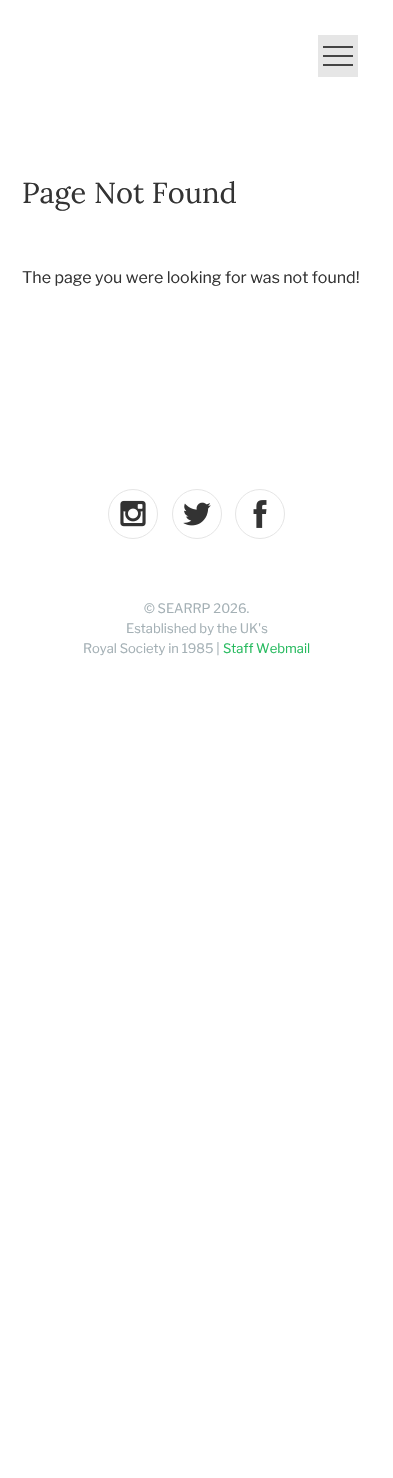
void draw(SkCanvas* canvas) {
  SkPaint paint;
  paint.setAntiAlias(true);
  auto face = [&](const char* family, int weight, float size, bool italic = false) {
    SkFontStyle style(weight, SkFontStyle::kNormal_Width,
      italic ? SkFontStyle::kItalic_Slant : SkFontStyle::kUpright_Slant);
    SkFont result(fontMgr->matchFamilyStyle(family, style), size);
    result.setSubpixel(true);
    return result;
  };
  auto paste = [&](const char* path, float x, float y, float w, float h) {
    auto image = SkImages::DeferredFromEncodedData(SkData::MakeFromFileName(path));
    canvas->drawImageRect(image, SkRect::MakeXYWH(x, y, w, h), SkSamplingOptions());
  };
  canvas->clear(0xffffffff);
  {
    const struct { float x, y, w, h; SkColor color; } items[] = {
      {318, 35, 40, 42, 0xffe6e6e6},
      {323, 46, 30, 2, 0xff444444},
      {323, 55, 30, 2, 0xff444444},
      {323, 64, 30, 2, 0xff444444},
    };
    for (auto [x, y, w, h, color] : items) {
      paint.setColor(color);
      canvas->drawRect(SkRect::MakeXYWH(x, y, w, h), paint);
    }
  }
  paint.setStroke(true);
  paint.setStrokeWidth(1);
  paint.setColor(0xffe5e5e5);
  canvas->drawCircle(133, 514, 24.5f, paint);
  paste("img/1.png", 120, 500, 26, 27);
  canvas->drawCircle(197, 514, 24.5f, paint);
  paste("img/2.png", 183, 502, 28, 24);
  canvas->drawCircle(260, 514, 24.5f, paint);
  paste("img/3.png", 253, 500, 14, 28);
  auto f0 = face("Lora", 400, 29);
  paint.setStroke(false);
  paint.setColor(0xff333333);
  canvas->drawString("Page Not Found", 22, 203, f0, paint);
  auto f1 = face("Libre Franklin", 400, 16);
  canvas->drawString("The page you were looking for was not found!", 22, 283, f1, paint);
  auto f2 = face("Libre Franklin", 400, 13);
  paint.setColor(0xffa4b0b5);
  {
    const struct { const char* s; float x, y; } items[] = {
      {"© SEARRP 2026.", 144, 613},
      {"Established by the UK's", 126, 633},
      {"Royal Society in 1985 |", 83, 653},
    };
    for (auto [s, x, y] : items) {
      canvas->drawString(s, x, y, f2, paint);
    }
  }
  paint.setColor(0xff26ba5e);
  canvas->drawString("Staff Webmail", 223, 653, f2, paint);
}
